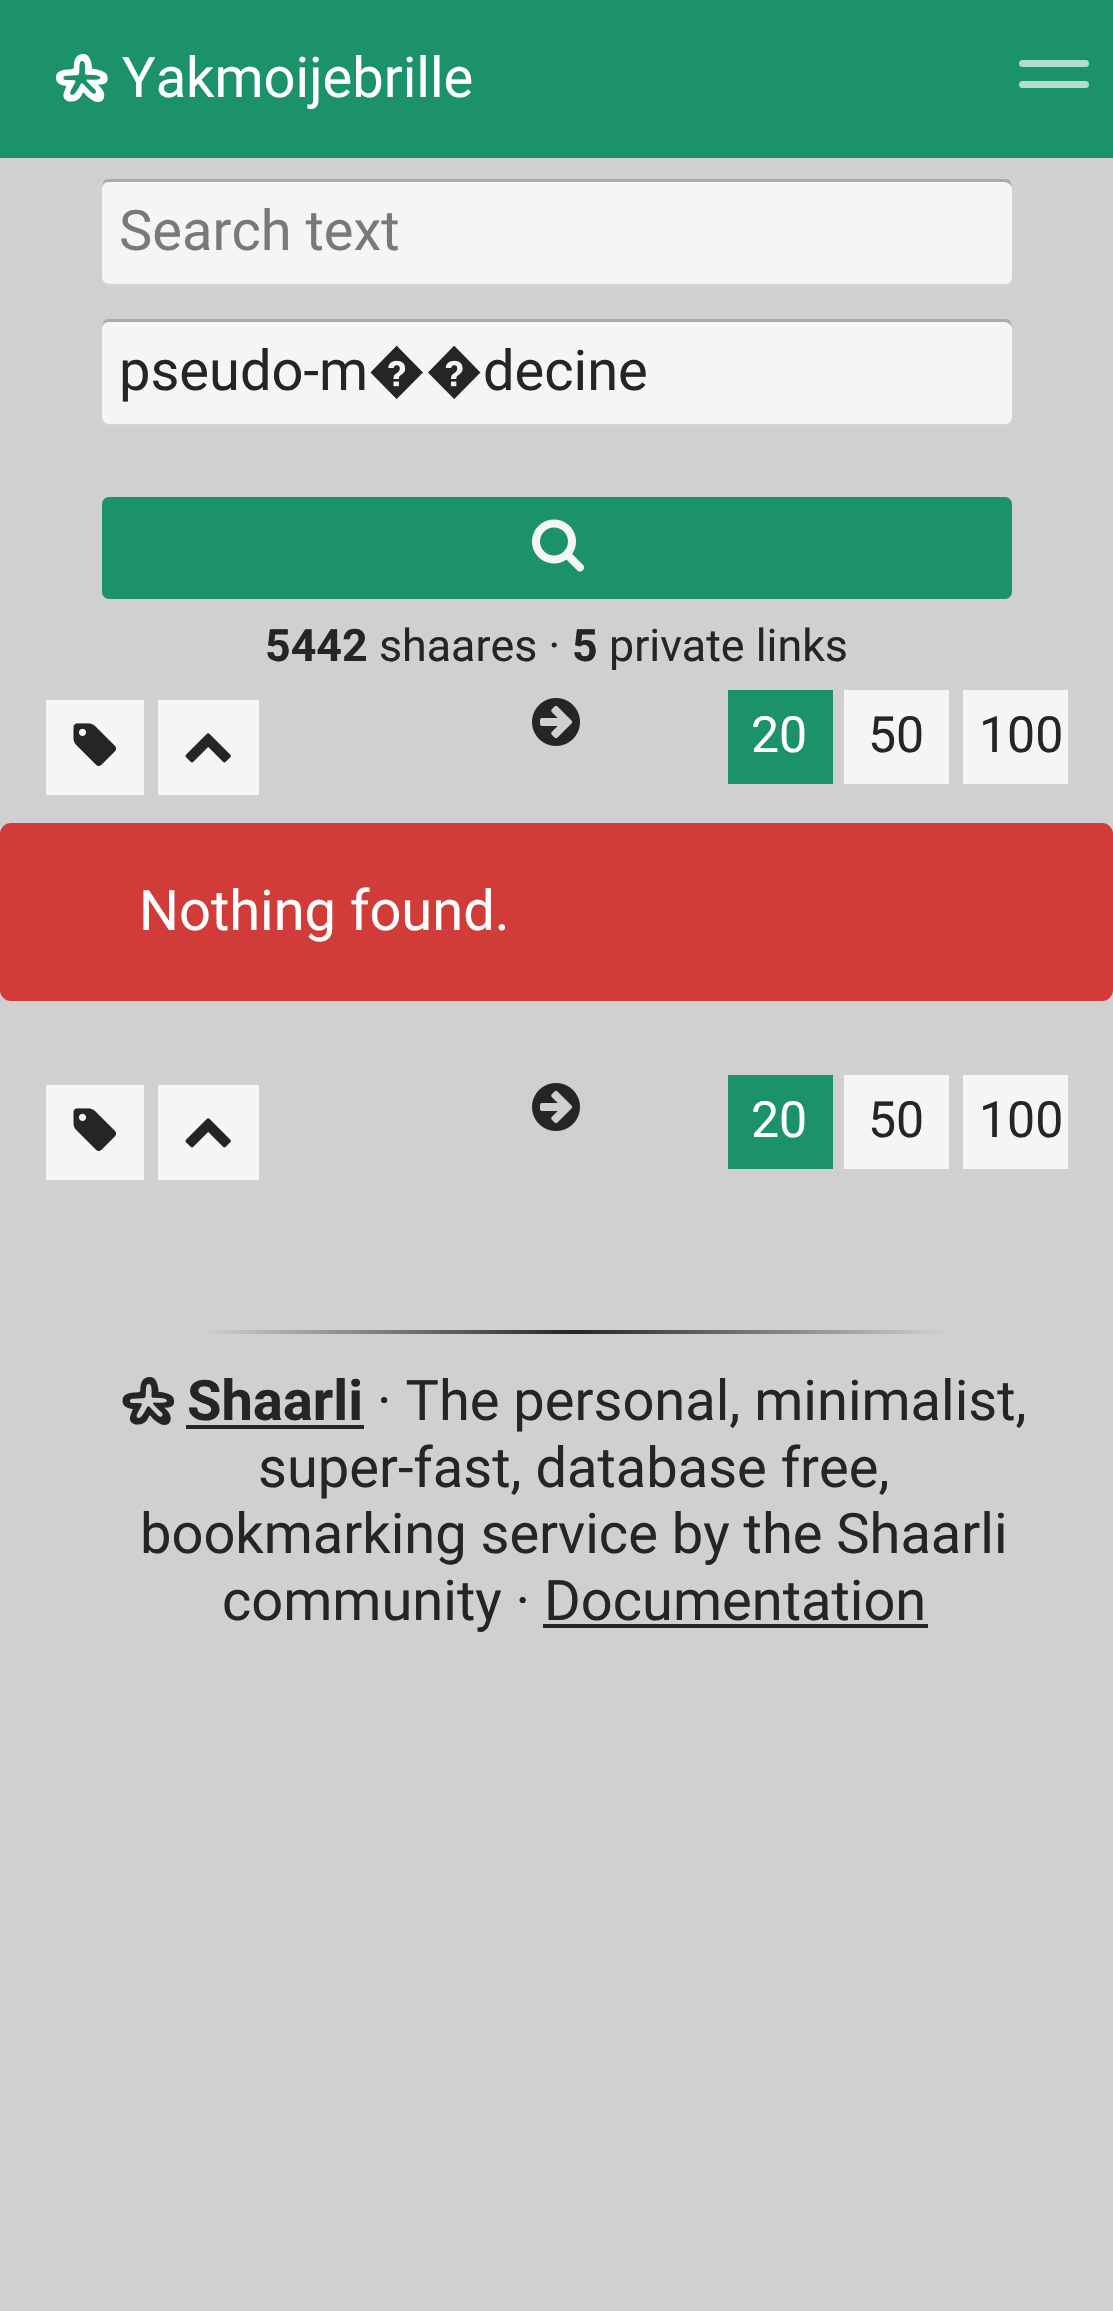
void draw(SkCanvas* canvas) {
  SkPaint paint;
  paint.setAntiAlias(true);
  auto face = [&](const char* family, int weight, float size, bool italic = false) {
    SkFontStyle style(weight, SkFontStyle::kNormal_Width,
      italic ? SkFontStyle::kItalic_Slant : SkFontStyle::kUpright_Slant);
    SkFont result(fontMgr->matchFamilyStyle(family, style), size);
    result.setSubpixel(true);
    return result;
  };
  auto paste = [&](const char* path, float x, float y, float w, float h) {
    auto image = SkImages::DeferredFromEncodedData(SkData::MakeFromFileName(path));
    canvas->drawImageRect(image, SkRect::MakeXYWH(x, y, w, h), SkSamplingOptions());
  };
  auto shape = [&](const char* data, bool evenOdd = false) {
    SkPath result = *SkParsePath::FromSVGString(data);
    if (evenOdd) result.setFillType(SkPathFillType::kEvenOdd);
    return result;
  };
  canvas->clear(0xffd0d0d0);
  paint.setColor(0xff1b926c);
  canvas->drawRect(SkRect::MakeXYWH(0, 0, 1113, 158), paint);
  paste("img/1.png", 56, 54, 52, 48);
  paint.setColor(0xffb0ddce);
  canvas->drawRoundRect(SkRect::MakeXYWH(1019, 60, 70, 7), 3.5f, 3.5f, paint);
  canvas->drawRoundRect(SkRect::MakeXYWH(1019, 81, 70, 7), 3.5f, 3.5f, paint);
  paint.setColor(0xffd4d4d4);
  canvas->drawPath(shape("M102 279V280C102 284 105 287 109 287H1005C1009 287 1012 284 1012 280V189V186V276C1012 280 1008 284 1004 284H108C106 284 103 282 102 279Z"), paint);
  paint.setColor(0xfff5f5f5);
  canvas->drawRoundRect(SkRect::MakeXYWH(102, 179, 910, 105), 7, 7, paint);
  paint.setColor(0x4d000000);
  canvas->drawPath(shape("M108 182H1004C1008 182 1012 185 1012 189C1012 184 1011 179 1005 179H109C103 179 102 184 102 189C102 185 105 182 108 182Z"), paint);
  paint.setColor(0xffd4d4d4);
  canvas->drawPath(shape("M102 419V420C102 424 105 427 109 427H1005C1009 427 1012 424 1012 420V329V326V416C1012 420 1008 424 1004 424H108C106 424 103 422 102 419Z"), paint);
  paint.setColor(0xfff5f5f5);
  canvas->drawRoundRect(SkRect::MakeXYWH(102, 319, 910, 105), 7, 7, paint);
  paint.setColor(0x4d000000);
  canvas->drawPath(shape("M108 322H1004C1008 322 1012 325 1012 329C1012 324 1011 319 1005 319H109C103 319 102 324 102 329C102 325 105 322 108 322Z"), paint);
  paint.setColor(0xff1b926c);
  canvas->drawRoundRect(SkRect::MakeXYWH(102, 497, 910, 102), 7, 7, paint);
  paste("img/2.png", 532, 519, 52, 53);
  paint.setColor(0xfff5f5f5);
  canvas->drawRect(SkRect::MakeXYWH(46, 700, 98, 95), paint);
  paste("img/3.png", 73, 723, 44, 43);
  canvas->drawRect(SkRect::MakeXYWH(158, 700, 101, 95), paint);
  paste("img/4.png", 185, 733, 46, 30);
  paste("img/5.png", 532, 698, 48, 48);
  {
    const struct { float x, y, w, h; SkColor color; } items[] = {
      {728, 690, 105, 94, 0xff1b926c},
      {844, 690, 105, 94, 0xfff5f5f5},
      {963, 690, 105, 94, 0xfff5f5f5},
    };
    for (auto [x, y, w, h, color] : items) {
      paint.setColor(color);
      canvas->drawRect(SkRect::MakeXYWH(x, y, w, h), paint);
    }
  }
  paint.setColor(0xffd13c38);
  canvas->drawRoundRect(SkRect::MakeXYWH(0, 823, 1113, 178), 11, 11, paint);
  paint.setColor(0xfff5f5f5);
  canvas->drawRect(SkRect::MakeXYWH(46, 1085, 98, 95), paint);
  paste("img/3.png", 73, 1108, 44, 43);
  canvas->drawRect(SkRect::MakeXYWH(158, 1085, 101, 95), paint);
  paste("img/4.png", 185, 1118, 46, 30);
  paste("img/5.png", 532, 1083, 48, 48);
  {
    const struct { float x, y, w, h; SkColor color; } items[] = {
      {728, 1075, 105, 94, 0xff1b926c},
      {844, 1075, 105, 94, 0xfff5f5f5},
      {963, 1075, 105, 94, 0xfff5f5f5},
    };
    for (auto [x, y, w, h, color] : items) {
      paint.setColor(color);
      canvas->drawRect(SkRect::MakeXYWH(x, y, w, h), paint);
    }
  }
  {
    const SkColor colors[] = {0xffd0d0d0, 0xff252525, 0xffd0d0d0};
    const float stops[] = {0, 0.5f, 1};
    const SkPoint ends[] = {{203, 1332}, {945, 1332}};
    paint.setShader(SkGradientShader::MakeLinear(ends, colors, stops, 3, SkTileMode::kClamp));
    paint.setAlpha(255);
  }
  canvas->drawRect(SkRect::MakeXYWH(203, 1330, 742, 4), paint);
  paste("img/6.png", 122, 1377, 53, 48);
  paint.setShader(nullptr);
  paint.setColor(0xff252525);
  canvas->drawRect(SkRect::MakeXYWH(186, 1425, 178, 4), paint);
  canvas->drawRect(SkRect::MakeXYWH(543, 1624, 385, 4), paint);
  auto f0 = face("Roboto", 400, 56);
  paint.setColor(0xffffffff);
  canvas->drawString("Yakmoijebrille", 122, 97, f0, paint);
  paint.setColor(0xff797979);
  canvas->drawString("Search text", 119, 250, f0, paint);
  paint.setColor(0xff252525);
  canvas->drawString("pseudo-m��decine", 119, 390, f0, paint);
  auto f1 = face("Roboto", 700, 44.75f);
  canvas->drawString("5442", 265, 661, f1, paint);
  auto f2 = face("Roboto", 400, 44.75f);
  canvas->drawString("shaares ·", 379, 661, f2, paint);
  canvas->drawString("5", 572, 661, f1, paint);
  canvas->drawString("private links", 609, 661, f2, paint);
  auto f3 = face("Roboto", 400, 50);
  paint.setColor(0xffffffff);
  canvas->drawString("20", 751, 752, f3, paint);
  paint.setColor(0xff252525);
  canvas->drawString("50", 868, 752, f3, paint);
  canvas->drawString("100", 979, 752, f3, paint);
  paint.setColor(0xffffffff);
  canvas->drawString("Nothing found.", 139, 930, f0, paint);
  canvas->drawString("20", 751, 1137, f3, paint);
  paint.setColor(0xff252525);
  canvas->drawString("50", 868, 1137, f3, paint);
  canvas->drawString("100", 979, 1137, f3, paint);
  auto f4 = face("Roboto", 700, 56);
  canvas->drawString("Shaarli", 187, 1420, f4, paint);
  {
    const struct { const char* s; float x, y; } items[] = {
      {"· The personal, minimalist,", 377, 1420},
      {"super-fast, database free,", 258, 1487},
      {"bookmarking service by the Shaarli", 140, 1553},
      {"community · Documentation", 222, 1620},
    };
    for (auto [s, x, y] : items) {
      canvas->drawString(s, x, y, f0, paint);
    }
  }
}
